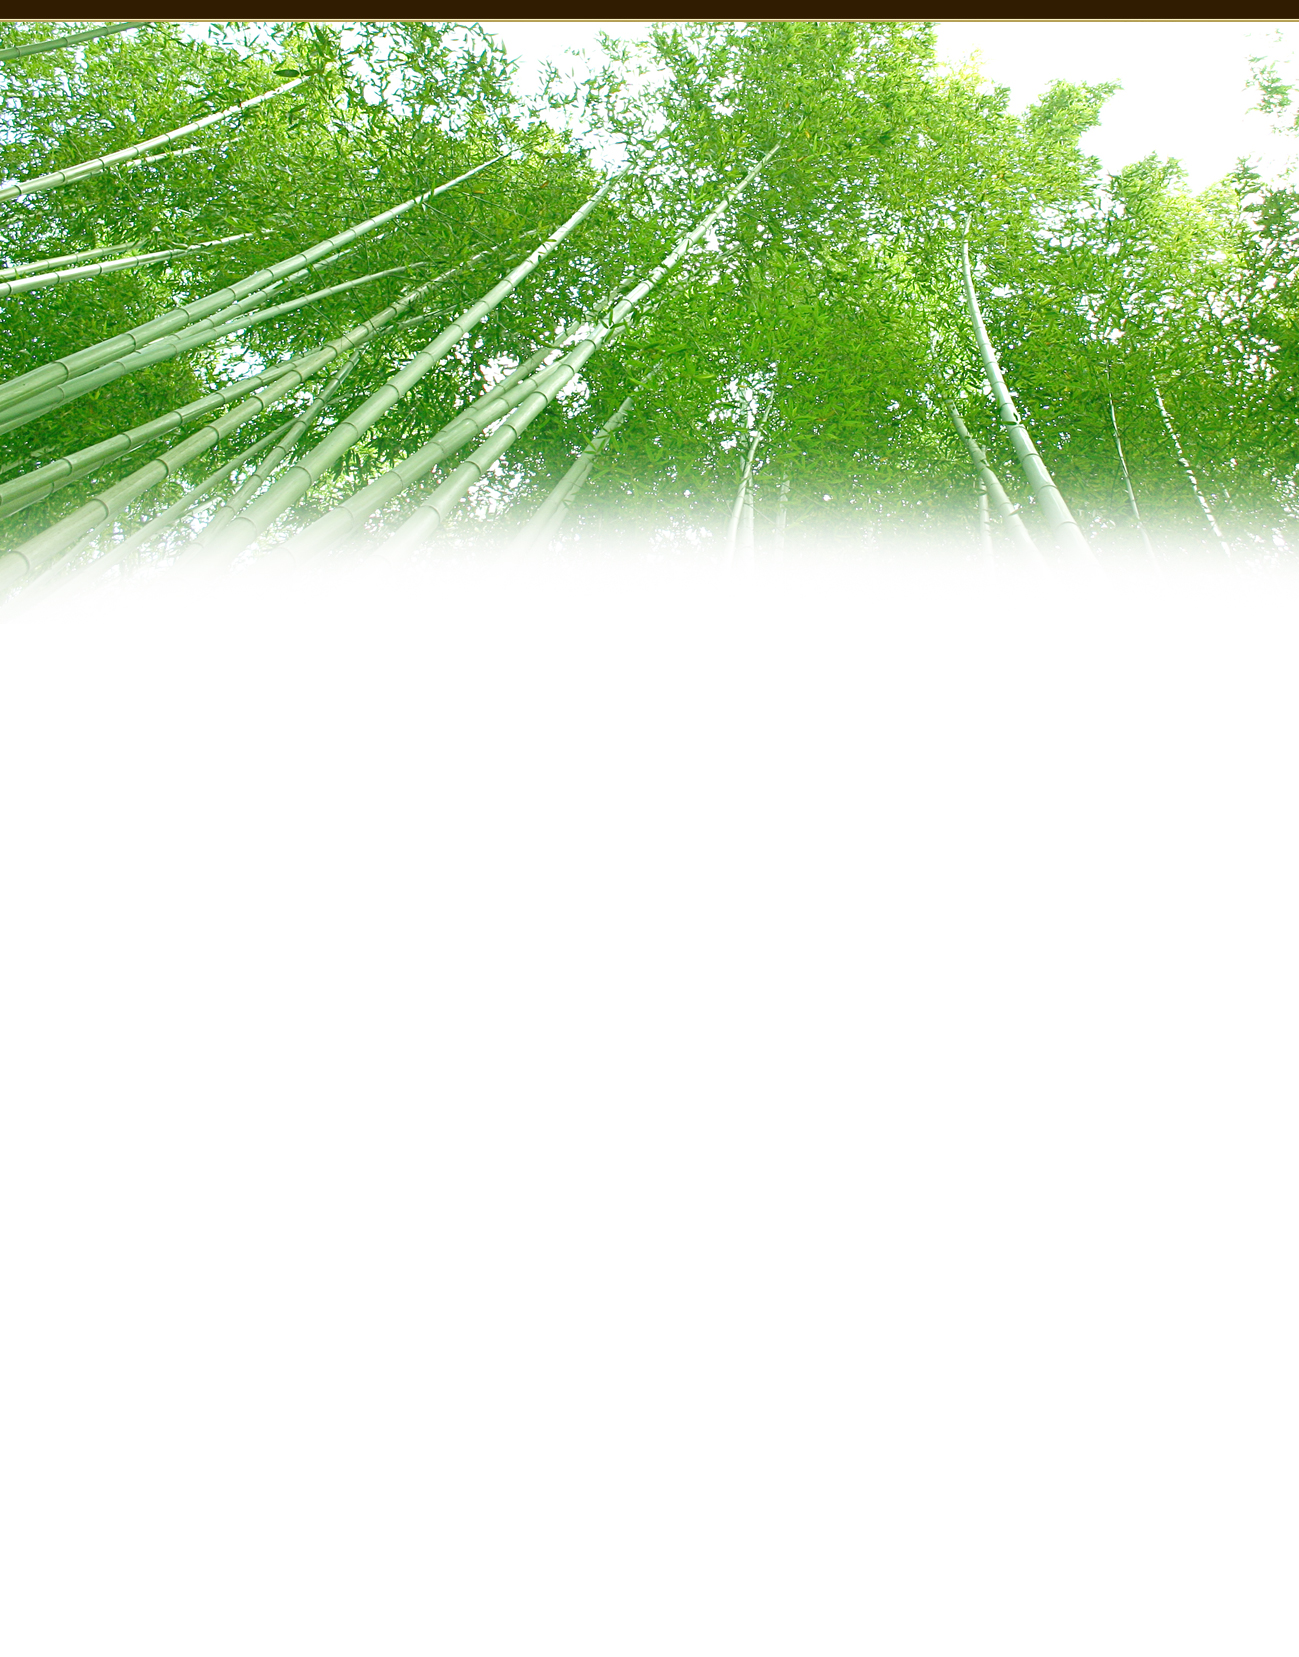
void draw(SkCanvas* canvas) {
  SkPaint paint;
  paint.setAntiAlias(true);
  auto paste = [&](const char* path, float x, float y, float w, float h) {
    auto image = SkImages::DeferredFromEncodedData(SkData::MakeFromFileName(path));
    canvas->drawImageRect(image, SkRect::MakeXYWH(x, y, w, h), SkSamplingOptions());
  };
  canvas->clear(0xffffffff);
  paste("img/1.png", 0, 0, 1299, 624);
}
